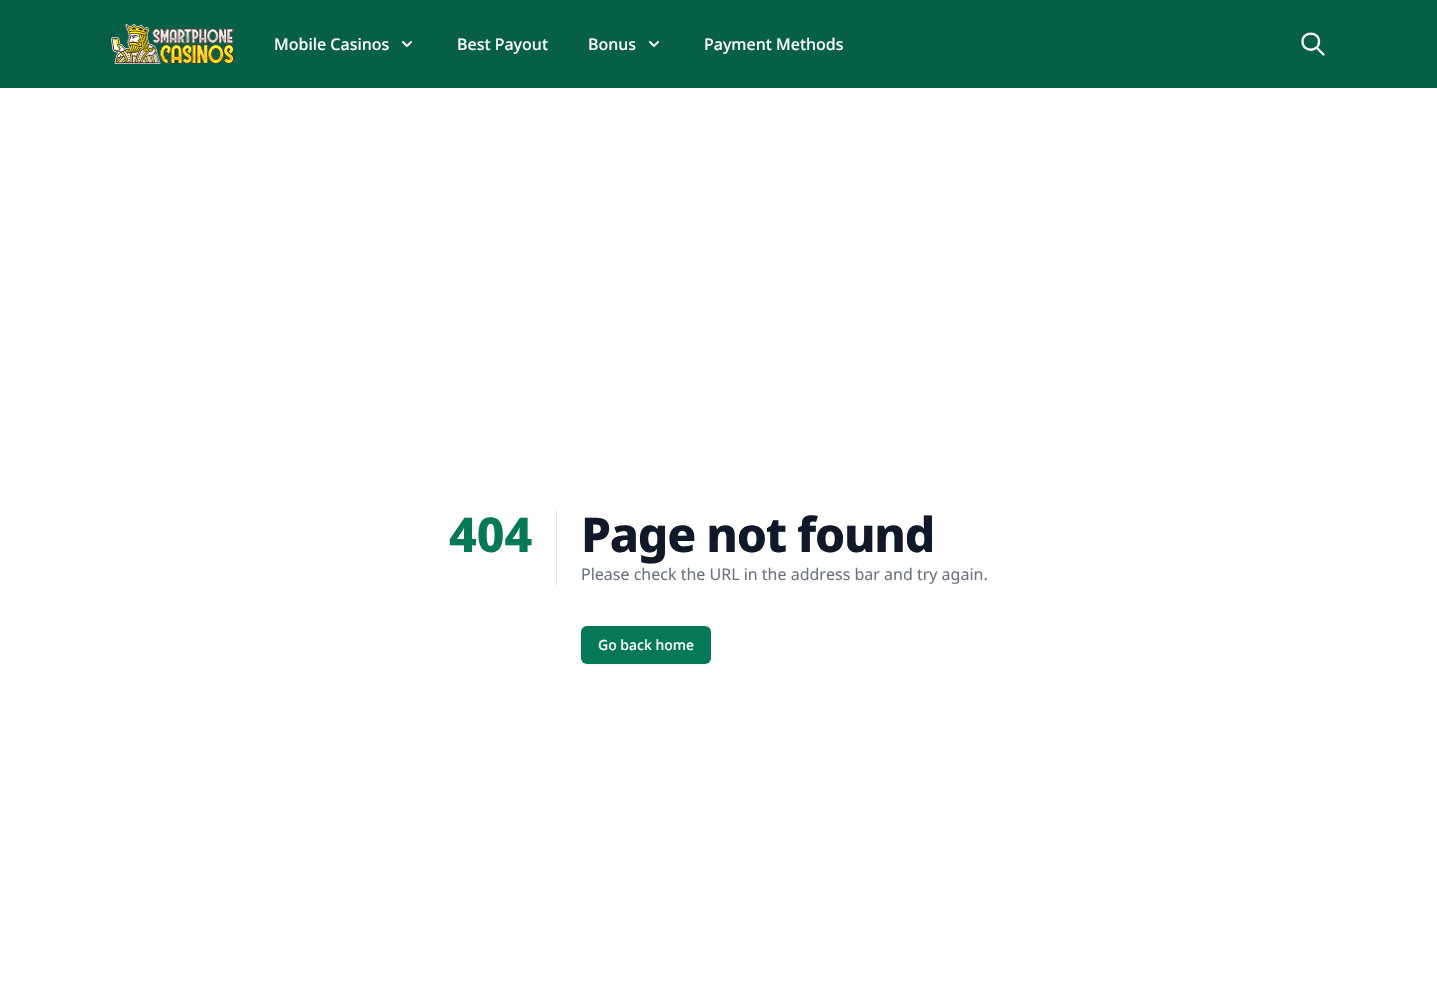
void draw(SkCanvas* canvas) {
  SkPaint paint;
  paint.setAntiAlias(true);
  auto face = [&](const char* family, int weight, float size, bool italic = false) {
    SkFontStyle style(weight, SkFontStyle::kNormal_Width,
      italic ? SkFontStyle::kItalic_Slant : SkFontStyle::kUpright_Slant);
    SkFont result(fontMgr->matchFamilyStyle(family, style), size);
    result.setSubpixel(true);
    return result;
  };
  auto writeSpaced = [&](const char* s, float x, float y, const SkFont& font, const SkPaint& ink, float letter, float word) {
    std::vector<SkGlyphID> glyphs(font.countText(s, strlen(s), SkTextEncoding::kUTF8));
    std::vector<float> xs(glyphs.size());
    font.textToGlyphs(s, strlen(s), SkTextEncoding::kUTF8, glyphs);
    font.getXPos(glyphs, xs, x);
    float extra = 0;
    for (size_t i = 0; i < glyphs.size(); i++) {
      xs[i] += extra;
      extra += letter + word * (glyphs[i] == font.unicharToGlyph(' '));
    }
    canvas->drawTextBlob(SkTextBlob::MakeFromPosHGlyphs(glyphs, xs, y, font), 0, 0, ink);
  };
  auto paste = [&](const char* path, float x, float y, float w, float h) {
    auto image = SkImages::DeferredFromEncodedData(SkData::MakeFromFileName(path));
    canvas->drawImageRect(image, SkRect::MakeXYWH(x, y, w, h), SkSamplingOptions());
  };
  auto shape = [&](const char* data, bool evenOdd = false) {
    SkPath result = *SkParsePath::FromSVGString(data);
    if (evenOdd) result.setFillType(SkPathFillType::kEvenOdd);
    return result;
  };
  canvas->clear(0xffffffff);
  paint.setColor(0xff065f46);
  canvas->drawRect(SkRect::MakeXYWH(0, 0, 1437, 88), paint);
  paste("img/1.png", 111, 24, 123, 40);
  paste("img/2.png", 402, 41, 10, 6);
  paste("img/2.png", 649, 41, 10, 6);
  paint.setStroke(true);
  paint.setStrokeWidth(2.3f);
  paint.setStrokeCap(SkPaint::kRound_Cap);
  paint.setStrokeJoin(SkPaint::kRound_Join);
  paint.setColor(0xffffffff);
  canvas->drawPath(shape("M1323.5 54.5L1316.5 47.5M1319 41.5C1319 52.5 1302.5 52.5 1302.5 41.5C1302.5 31 1319 31 1319 41.5Z"), paint);
  paint.setStroke(false);
  paint.setColor(0xffe5e7eb);
  canvas->drawRect(SkRect::MakeXYWH(556, 510, 1, 76), paint);
  paint.setColor(0x0d000000);
  paint.setMaskFilter(SkMaskFilter::MakeBlur(kNormal_SkBlurStyle, 1));
  canvas->drawRoundRect(SkRect::MakeXYWH(581, 627, 130, 38), 6, 6, paint);
  paint.setMaskFilter(nullptr);
  paint.setColor(0xff047857);
  canvas->drawRoundRect(SkRect::MakeXYWH(581, 626, 130, 38), 6, 6, paint);
  auto f0 = face("Noto Sans", 500, 16);
  paint.setColor(0xffffffff);
  {
    const struct { const char* s; float x, y; } items[] = {
      {"Mobile Casinos", 274, 50},
      {"Best Payout", 457, 50},
      {"Bonus", 588, 50},
      {"Payment Methods", 704, 50},
    };
    for (auto [s, x, y] : items) {
      canvas->drawString(s, x, y, f0, paint);
    }
  }
  auto f1 = face("Noto Sans", 800, 48);
  paint.setColor(0xff047857);
  canvas->drawString("404", 449, 552, f1, paint);
  paint.setColor(0xff111827);
  writeSpaced("Page not found", 581, 552, f1, paint, -1.25f, 0);
  auto f2 = face("Noto Sans", 400, 16);
  paint.setColor(0xff6b7280);
  canvas->drawString("Please check the URL in the address bar and try again.", 581, 580, f2, paint);
  auto f3 = face("Noto Sans", 500, 14);
  paint.setColor(0xffffffff);
  canvas->drawString("Go back home", 598, 650, f3, paint);
}
